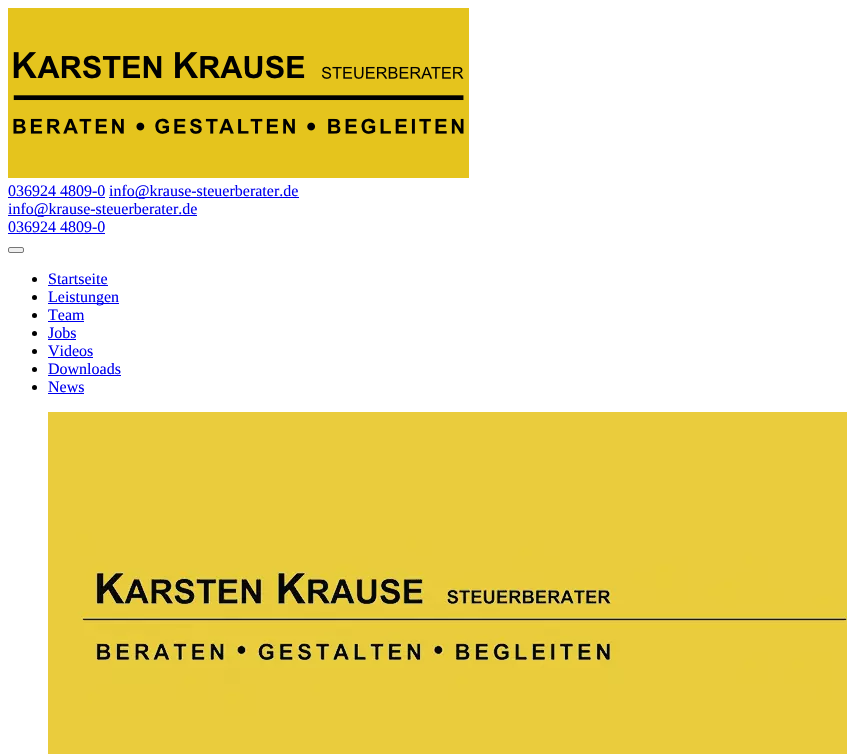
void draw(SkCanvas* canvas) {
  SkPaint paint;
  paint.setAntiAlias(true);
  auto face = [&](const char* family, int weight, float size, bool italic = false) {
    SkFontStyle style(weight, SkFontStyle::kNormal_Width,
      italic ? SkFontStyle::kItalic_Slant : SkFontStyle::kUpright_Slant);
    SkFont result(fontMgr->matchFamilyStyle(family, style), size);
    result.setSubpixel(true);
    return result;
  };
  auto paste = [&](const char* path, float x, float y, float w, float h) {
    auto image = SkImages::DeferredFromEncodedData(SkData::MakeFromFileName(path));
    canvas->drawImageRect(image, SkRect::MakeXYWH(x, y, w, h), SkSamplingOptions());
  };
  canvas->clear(0xffffffff);
  paste("img/1.png", 8, 8, 461, 170);
  {
    const struct { float x, y, w, h; SkColor color; } items[] = {
      {8, 197, 97, 1, 0xff0000ee},
      {109, 197, 190, 1, 0xff0000ee},
      {8, 215, 189, 1, 0xff0000ee},
      {8, 233, 97, 1, 0xff0000ee},
    };
    for (auto [x, y, w, h, color] : items) {
      paint.setColor(color);
      canvas->drawRect(SkRect::MakeXYWH(x, y, w, h), paint);
    }
  }
  paint.setColor(0xffefefef);
  canvas->drawRoundRect(SkRect::MakeXYWH(8.5f, 247.5f, 15, 5), 1.5f, 1.5f, paint);
  paint.setStroke(true);
  paint.setStrokeWidth(1);
  paint.setColor(0xff767676);
  canvas->drawRoundRect(SkRect::MakeXYWH(8.5f, 247.5f, 15, 5), 1.5f, 1.5f, paint);
  paint.setStroke(false);
  paint.setColor(0xff000000);
  canvas->drawCircle(34.5f, 279.5f, 2.5f, paint);
  paint.setColor(0xff0000ee);
  canvas->drawRect(SkRect::MakeXYWH(48, 285, 60, 1), paint);
  paint.setColor(0xff000000);
  canvas->drawCircle(34.5f, 297.5f, 2.5f, paint);
  paint.setColor(0xff0000ee);
  canvas->drawRect(SkRect::MakeXYWH(48, 303, 71, 1), paint);
  paint.setColor(0xff000000);
  canvas->drawCircle(34.5f, 315.5f, 2.5f, paint);
  paint.setColor(0xff0000ee);
  canvas->drawRect(SkRect::MakeXYWH(48, 321, 36, 1), paint);
  paint.setColor(0xff000000);
  canvas->drawCircle(34.5f, 333.5f, 2.5f, paint);
  paint.setColor(0xff0000ee);
  canvas->drawRect(SkRect::MakeXYWH(48, 339, 28, 1), paint);
  paint.setColor(0xff000000);
  canvas->drawCircle(34.5f, 351.5f, 2.5f, paint);
  paint.setColor(0xff0000ee);
  canvas->drawRect(SkRect::MakeXYWH(48, 357, 45, 1), paint);
  paint.setColor(0xff000000);
  canvas->drawCircle(34.5f, 369.5f, 2.5f, paint);
  paint.setColor(0xff0000ee);
  canvas->drawRect(SkRect::MakeXYWH(48, 375, 73, 1), paint);
  paint.setColor(0xff000000);
  canvas->drawCircle(34.5f, 387.5f, 2.5f, paint);
  paint.setColor(0xff0000ee);
  canvas->drawRect(SkRect::MakeXYWH(48, 393, 36, 1), paint);
  paste("img/2.png", 48, 412, 799, 342);
  auto f0 = face("Liberation Serif", 400, 16);
  {
    const struct { const char* s; float x, y; } items[] = {
      {"036924 4809-0", 8, 196},
      {"info@krause-steuerberater.de", 109, 196},
      {"info@krause-steuerberater.de", 8, 214},
      {"036924 4809-0", 8, 232},
      {"Startseite", 48, 284},
      {"Leistungen", 48, 302},
      {"Team", 48, 320},
      {"Jobs", 48, 338},
      {"Videos", 48, 356},
      {"Downloads", 48, 374},
      {"News", 48, 392},
    };
    for (auto [s, x, y] : items) {
      canvas->drawString(s, x, y, f0, paint);
    }
  }
}
